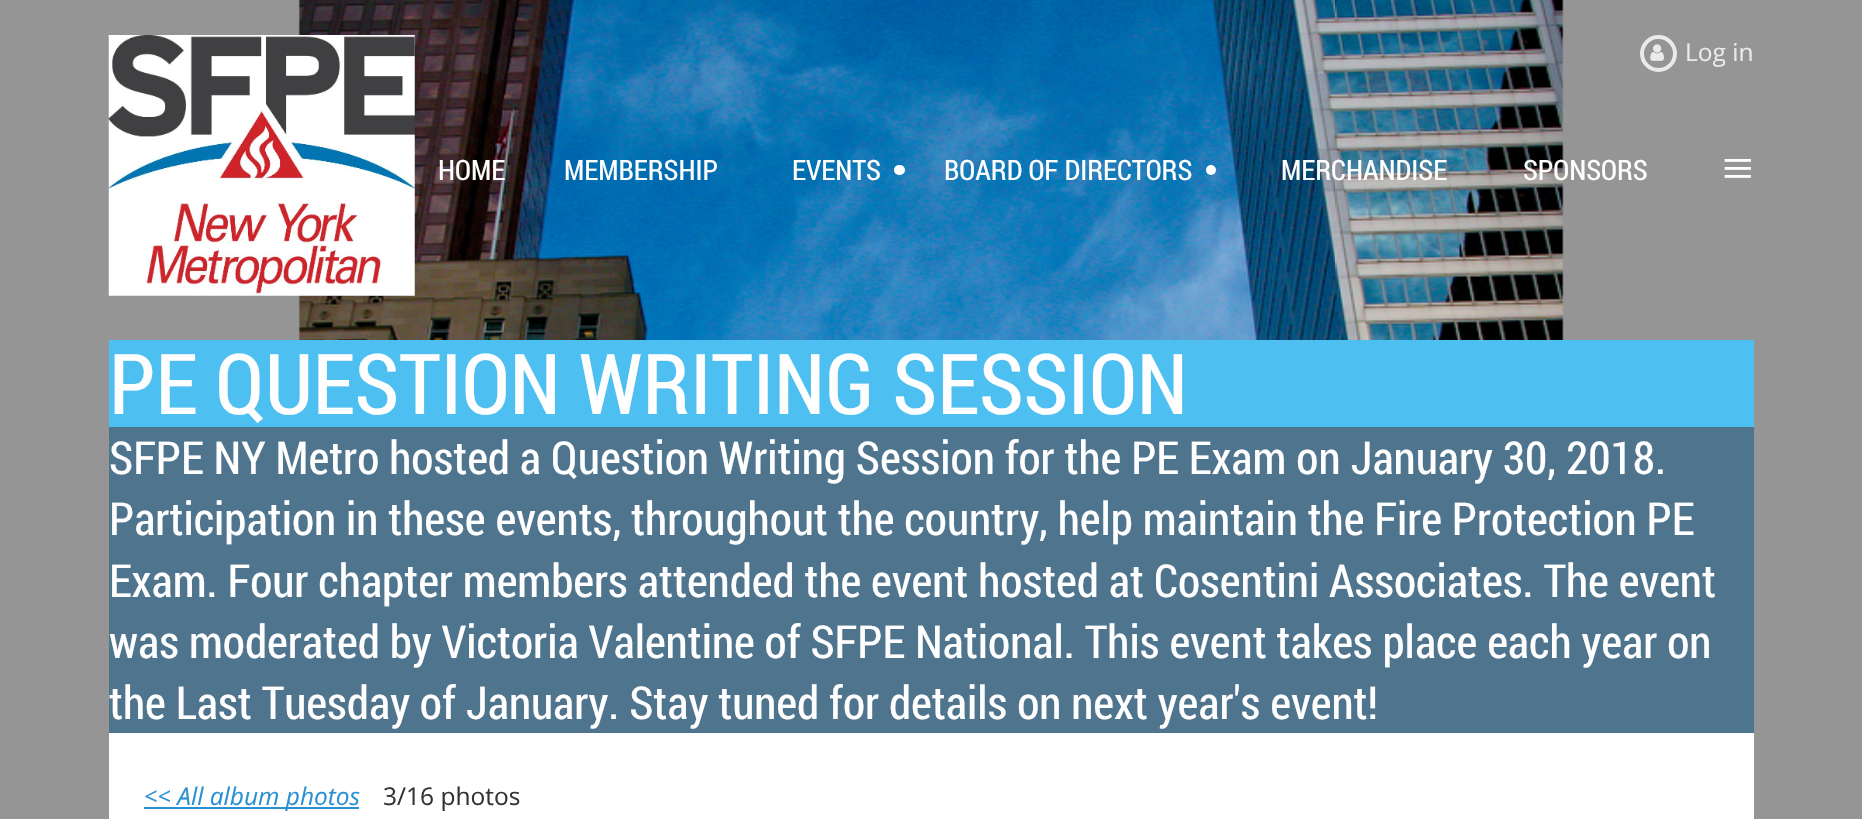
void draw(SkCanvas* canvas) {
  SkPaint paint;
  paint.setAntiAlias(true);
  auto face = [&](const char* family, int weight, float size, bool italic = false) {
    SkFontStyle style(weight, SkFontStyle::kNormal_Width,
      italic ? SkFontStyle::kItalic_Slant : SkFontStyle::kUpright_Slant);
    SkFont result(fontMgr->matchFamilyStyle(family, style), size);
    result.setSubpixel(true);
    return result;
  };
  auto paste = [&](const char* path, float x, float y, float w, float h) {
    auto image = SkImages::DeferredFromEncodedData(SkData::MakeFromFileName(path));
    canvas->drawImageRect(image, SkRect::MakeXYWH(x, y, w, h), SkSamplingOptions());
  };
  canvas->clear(0xff959595);
  paste("img/1.png", 298, 0, 1266, 340);
  paste("img/2.png", 108, 35, 307, 261);
  paint.setStroke(true);
  paint.setStrokeWidth(4);
  paint.setColor(0xffeaeaea);
  canvas->drawCircle(1658.5f, 53.5f, 16.5f, paint);
  paste("img/3.png", 1650, 44, 14, 17);
  paint.setStroke(false);
  paint.setColor(0xffffffff);
  canvas->drawRoundRect(SkRect::MakeXYWH(894, 165, 11, 10), 5, 5, paint);
  canvas->drawCircle(1211, 170, 5, paint);
  {
    const struct { float x, y, w, h; SkColor color; } items[] = {
      {109, 340, 1645, 87, 0xff4dbff0},
      {109, 427, 1645, 306, 0xff4f748d},
      {109, 733, 1645, 86, 0xffffffff},
      {144, 807, 215, 2, 0xff2b90d1},
    };
    for (auto [x, y, w, h, color] : items) {
      paint.setColor(color);
      canvas->drawRect(SkRect::MakeXYWH(x, y, w, h), paint);
    }
  }
  auto f0 = face("Open Sans", 400, 24.5f);
  paint.setColor(0xffeaeaea);
  canvas->drawString("Log in", 1685, 61, f0, paint);
  auto f1 = face("Roboto Condensed", 400, 28);
  paint.setColor(0xfffefefe);
  {
    const struct { const char* s; float x, y; } items[] = {
      {"HOME", 438, 180},
      {"MEMBERSHIP", 564, 180},
      {"EVENTS", 792, 180},
      {"BOARD OF DIRECTORS", 944, 180},
      {"MERCHANDISE", 1281, 180},
      {"SPONSORS", 1523, 180},
    };
    for (auto [s, x, y] : items) {
      canvas->drawString(s, x, y, f1, paint);
    }
  }
  auto f2 = face("Liberation Serif", 400, 56);
  canvas->drawString("≡", 1722, 187, f2, paint);
  auto f3 = face("Roboto Condensed", 400, 84);
  canvas->drawString("PE QUESTION WRITING SESSION", 109, 414, f3, paint);
  auto f4 = face("Roboto Condensed", 400, 45.5f);
  {
    const struct { const char* s; float x, y; } items[] = {
      {"SFPE NY Metro hosted a Question Writing Session for the PE Exam on January 30, 2018.", 109, 474},
      {"Participation in these events, throughout the country, help maintain the Fire Protection PE", 109, 535},
      {"Exam. Four chapter members attended the event hosted at Cosentini Associates. The event", 109, 597},
      {"was moderated by Victoria Valentine of SFPE National. This event takes place each year on", 109, 658},
      {"the Last Tuesday of January. Stay tuned for details on next year's event!", 109, 719},
    };
    for (auto [s, x, y] : items) {
      canvas->drawString(s, x, y, f4, paint);
    }
  }
  auto f5 = face("Open Sans", 400, 24.5f, true);
  paint.setColor(0xff2b90d1);
  canvas->drawString("<< All album photos", 144, 805, f5, paint);
  paint.setColor(0xff333333);
  canvas->drawString("3/16 photos", 383, 805, f0, paint);
}
